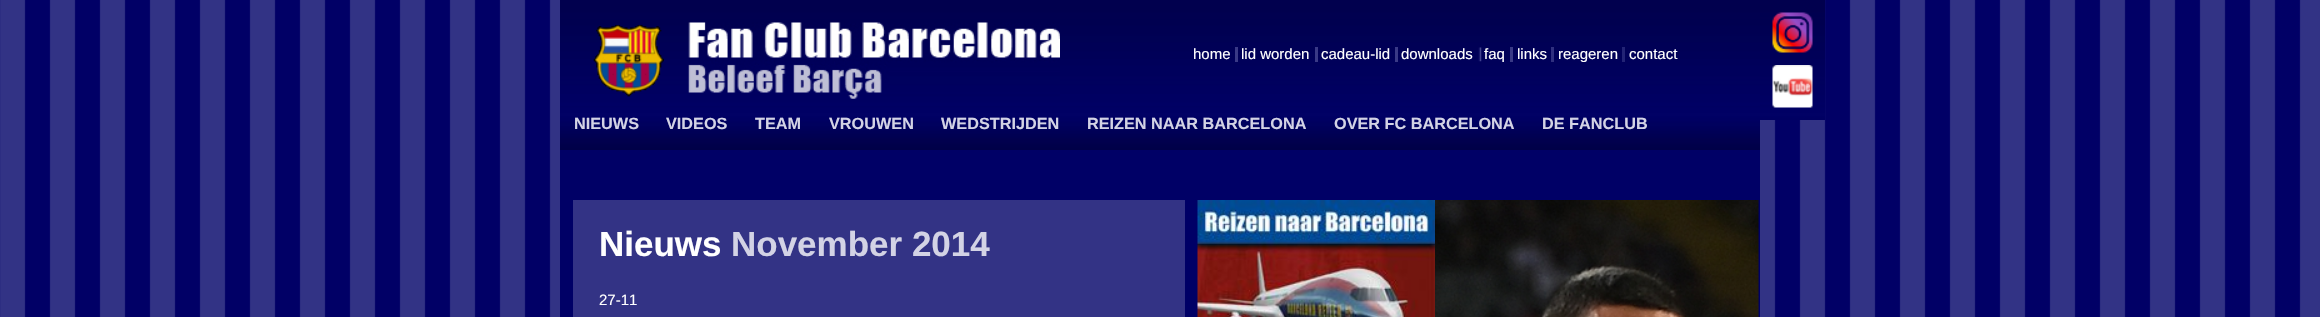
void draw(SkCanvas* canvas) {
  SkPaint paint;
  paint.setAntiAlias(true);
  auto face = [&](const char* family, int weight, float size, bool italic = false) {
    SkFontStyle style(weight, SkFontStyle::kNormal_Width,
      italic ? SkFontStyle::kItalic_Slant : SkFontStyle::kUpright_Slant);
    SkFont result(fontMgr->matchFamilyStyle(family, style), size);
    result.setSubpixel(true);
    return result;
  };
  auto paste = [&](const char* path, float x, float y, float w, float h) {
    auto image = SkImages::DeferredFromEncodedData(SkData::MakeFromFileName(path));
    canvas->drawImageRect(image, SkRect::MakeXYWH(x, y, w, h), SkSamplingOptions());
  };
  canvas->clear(0xffffffff);
  paste("img/1.png", 0, 0, 2320, 317);
  paint.setColor(0xff000066);
  canvas->drawRect(SkRect::MakeXYWH(560, 150, 1200, 167), paint);
  paste("img/2.png", 560, 0, 1200, 150);
  paste("img/3.png", 593, 24, 71, 73);
  paste("img/4.png", 688, 22, 372, 77);
  {
    const struct { float x, y, w, h; SkColor color; } items[] = {
      {1235, 47, 3, 15, 0xff393986},
      {1315, 47, 3, 15, 0xff393986},
      {1395, 47, 3, 15, 0xff393986},
    };
    for (auto [x, y, w, h, color] : items) {
      paint.setColor(color);
      canvas->drawRect(SkRect::MakeXYWH(x, y, w, h), paint);
    }
  }
  paste("img/5.png", 1478, 47, 4, 15);
  {
    const struct { float x, y, w, h; SkColor color; } items[] = {
      {1510, 47, 3, 15, 0xff393986},
      {1551, 47, 3, 15, 0xff2f2f7f},
      {1622, 47, 3, 15, 0xff222375},
    };
    for (auto [x, y, w, h, color] : items) {
      paint.setColor(color);
      canvas->drawRect(SkRect::MakeXYWH(x, y, w, h), paint);
    }
  }
  paste("img/6.png", 1760, 0, 65, 120);
  paste("img/7.png", 1772, 12, 41, 41);
  paste("img/8.png", 1772, 65, 41, 43);
  paint.setColor(0xff333385);
  canvas->drawRect(SkRect::MakeXYWH(573, 200, 612, 117), paint);
  paste("img/9.png", 1197, 200, 238, 117);
  paste("img/10.png", 1435, 200, 324, 117);
  auto f0 = face("Liberation Sans", 400, 15);
  paint.setColor(0xffffffff);
  {
    const struct { const char* s; float x, y; } items[] = {
      {"home", 1193, 59},
      {"lid worden", 1241, 59},
      {"cadeau-lid", 1321, 59},
      {"downloads", 1401, 59},
      {"faq", 1484, 59},
      {"links", 1517, 59},
      {"reageren", 1558, 59},
      {"contact", 1629, 59},
    };
    for (auto [s, x, y] : items) {
      canvas->drawString(s, x, y, f0, paint);
    }
  }
  auto f1 = face("Liberation Sans", 700, 16.25f);
  paint.setColor(0xffd3d3e5);
  {
    const struct { const char* s; float x, y; } items[] = {
      {"NIEUWS", 574, 129},
      {"VIDEOS", 666, 129},
      {"TEAM", 755, 129},
      {"VROUWEN", 829, 129},
      {"WEDSTRIJDEN", 941, 129},
      {"REIZEN NAAR BARCELONA", 1087, 129},
      {"OVER FC BARCELONA", 1334, 129},
      {"DE FANCLUB", 1542, 129},
    };
    for (auto [s, x, y] : items) {
      canvas->drawString(s, x, y, f1, paint);
    }
  }
  auto f2 = face("Liberation Sans", 700, 35);
  paint.setColor(0xffffffff);
  canvas->drawString("Nieuws", 599, 256, f2, paint);
  paint.setColor(0xffd3d3e5);
  canvas->drawString("November 2014", 731, 256, f2, paint);
  paint.setColor(0xffffffff);
  canvas->drawString("27-11", 599, 305, f0, paint);
}
